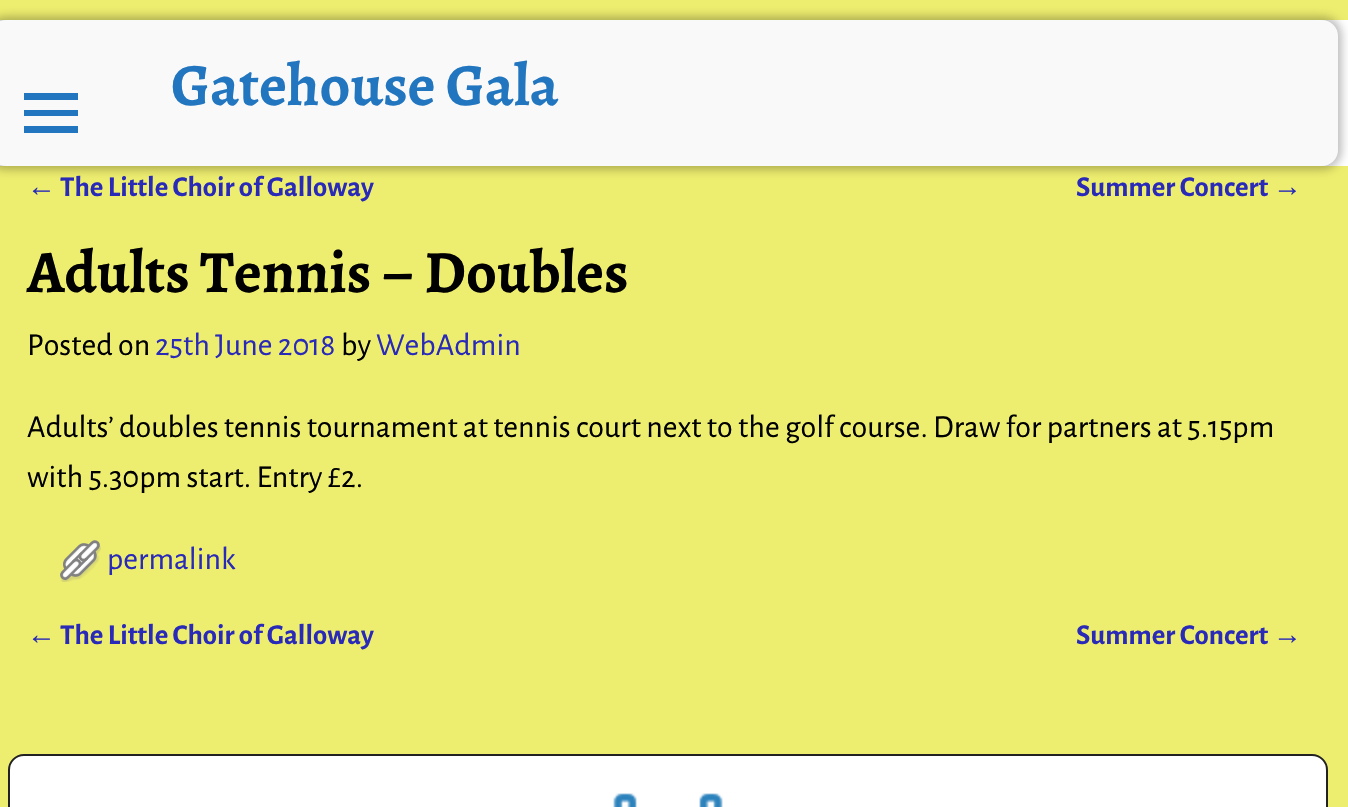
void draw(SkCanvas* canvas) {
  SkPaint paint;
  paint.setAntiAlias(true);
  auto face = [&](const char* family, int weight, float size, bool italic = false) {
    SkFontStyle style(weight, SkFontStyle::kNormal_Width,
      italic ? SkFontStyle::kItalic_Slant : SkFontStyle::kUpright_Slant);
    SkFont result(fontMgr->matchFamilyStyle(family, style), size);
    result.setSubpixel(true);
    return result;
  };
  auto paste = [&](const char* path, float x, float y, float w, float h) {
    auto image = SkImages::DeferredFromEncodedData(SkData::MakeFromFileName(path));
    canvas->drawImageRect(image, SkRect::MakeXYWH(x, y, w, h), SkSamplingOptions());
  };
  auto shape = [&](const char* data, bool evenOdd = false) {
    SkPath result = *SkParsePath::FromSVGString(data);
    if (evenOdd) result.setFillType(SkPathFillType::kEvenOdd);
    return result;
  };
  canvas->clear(0xffeded6f);
  paint.setColor(0xffffffff);
  canvas->drawRect(SkRect::MakeXYWH(0, 20, 1348, 146), paint);
  paint.setColor(0x40000000);
  paint.setMaskFilter(SkMaskFilter::MakeBlur(kNormal_SkBlurStyle, 4));
  canvas->drawRoundRect(SkRect::MakeXYWH(-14, 16, 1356, 154), 20, 20, paint);
  paint.setMaskFilter(nullptr);
  paint.setColor(0xfff9f9f9);
  canvas->drawRoundRect(SkRect::MakeXYWH(-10, 20, 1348, 146), 16, 16, paint);
  paint.setColor(0xff2276bf);
  canvas->drawPath(shape("M24 133V126H78V133ZM24 93H78V100H24ZM24 116V110H78V116Z"), paint);
  paste("img/1.png", 60, 540, 41, 42);
  paint.setColor(0xffffffff);
  canvas->drawRoundRect(SkRect::MakeXYWH(9, 755, 1318, 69), 15, 15, paint);
  paint.setStroke(true);
  paint.setStrokeWidth(2);
  paint.setColor(0xff222222);
  canvas->drawRoundRect(SkRect::MakeXYWH(9, 755, 1318, 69), 15, 15, paint);
  paste("img/2.png", 613, 793, 110, 14);
  auto f0 = face("Alegreya", 700, 60);
  paint.setStroke(false);
  paint.setColor(0xff2276bf);
  canvas->drawString("Gatehouse Gala", 171, 105, f0, paint);
  auto f1 = face("Liberation Sans", 400, 28.75f);
  paint.setColor(0xff2a2ab8);
  canvas->drawString("←", 27, 196, f1, paint);
  auto f2 = face("Alegreya Sans", 700, 28.75f);
  canvas->drawString("The Little Choir of Galloway", 60, 196, f2, paint);
  canvas->drawString("Summer Concert", 1076, 196, f2, paint);
  canvas->drawString("→", 1273, 196, f1, paint);
  paint.setColor(0xff000000);
  canvas->drawString("Adults Tennis – Doubles", 27, 292, f0, paint);
  auto f3 = face("Alegreya Sans", 400, 32);
  canvas->drawString("Posted on", 27, 355, f3, paint);
  paint.setColor(0xff2a2ab8);
  canvas->drawString("25th June 2018", 155, 355, f3, paint);
  paint.setColor(0xff000000);
  canvas->drawString("by", 341, 355, f3, paint);
  paint.setColor(0xff2a2ab8);
  canvas->drawString("WebAdmin", 376, 355, f3, paint);
  paint.setColor(0xff000000);
  canvas->drawString("Adults’ doubles tennis tournament at tennis court next to the golf course. Draw for partners at 5.15pm", 27, 437, f3, paint);
  canvas->drawString("with 5.30pm start. Entry £2.", 27, 487, f3, paint);
  paint.setColor(0xff2a2ab8);
  canvas->drawString("permalink", 107, 569, f3, paint);
  canvas->drawString("←", 27, 644, f1, paint);
  canvas->drawString("The Little Choir of Galloway", 60, 644, f2, paint);
  canvas->drawString("Summer Concert", 1076, 644, f2, paint);
  canvas->drawString("→", 1273, 644, f1, paint);
}
